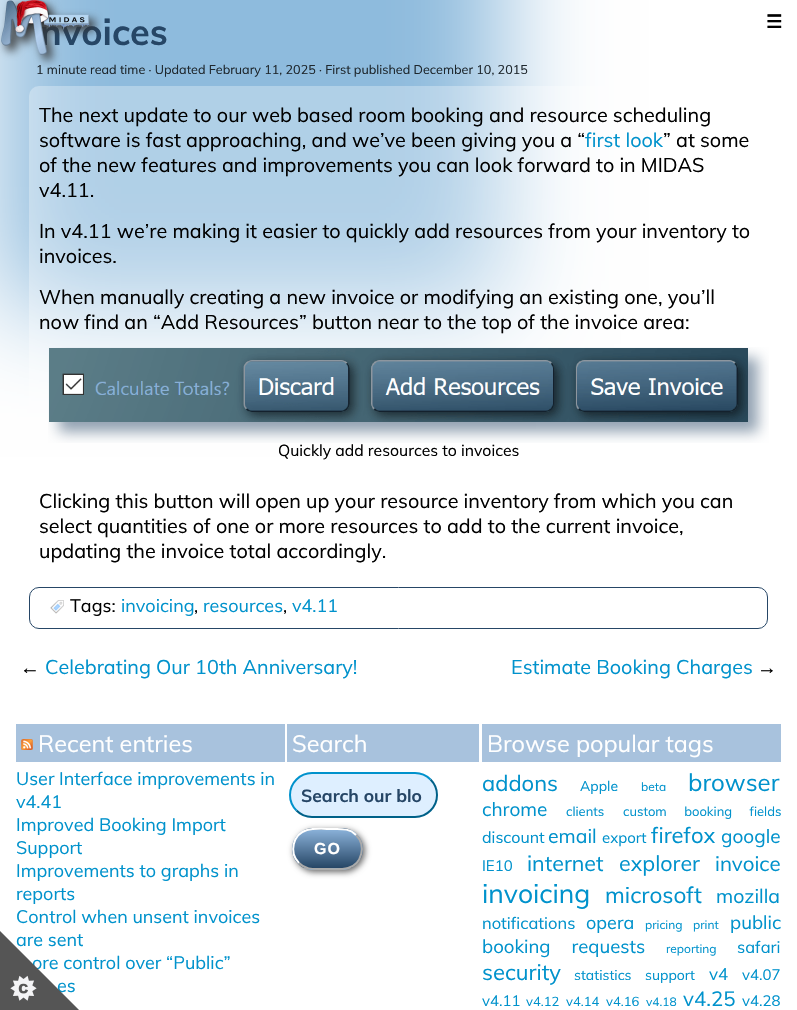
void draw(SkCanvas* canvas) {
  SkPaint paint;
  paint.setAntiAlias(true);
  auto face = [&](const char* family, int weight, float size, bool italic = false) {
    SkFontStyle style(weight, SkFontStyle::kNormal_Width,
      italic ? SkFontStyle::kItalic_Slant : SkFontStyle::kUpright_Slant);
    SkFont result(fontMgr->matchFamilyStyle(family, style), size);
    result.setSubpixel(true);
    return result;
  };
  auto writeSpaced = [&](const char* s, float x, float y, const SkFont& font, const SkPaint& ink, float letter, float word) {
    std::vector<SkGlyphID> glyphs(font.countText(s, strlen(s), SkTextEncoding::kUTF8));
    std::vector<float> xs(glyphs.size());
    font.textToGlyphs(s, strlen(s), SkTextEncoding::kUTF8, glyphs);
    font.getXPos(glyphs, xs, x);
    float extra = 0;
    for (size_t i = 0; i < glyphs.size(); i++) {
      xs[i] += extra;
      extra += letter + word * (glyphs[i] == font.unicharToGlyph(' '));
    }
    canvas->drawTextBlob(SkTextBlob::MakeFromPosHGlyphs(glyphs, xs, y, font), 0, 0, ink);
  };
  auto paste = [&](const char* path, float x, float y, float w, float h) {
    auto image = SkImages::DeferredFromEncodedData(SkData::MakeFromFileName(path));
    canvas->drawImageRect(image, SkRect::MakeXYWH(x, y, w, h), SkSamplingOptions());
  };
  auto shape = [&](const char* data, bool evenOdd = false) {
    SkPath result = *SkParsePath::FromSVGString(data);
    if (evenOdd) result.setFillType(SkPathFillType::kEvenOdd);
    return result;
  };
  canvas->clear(0xffffffff);
  paint.setColor(0xff8ebbdd);
  paint.setMaskFilter(SkMaskFilter::MakeBlur(kNormal_SkBlurStyle, 50));
  canvas->drawRect(SkRect::MakeXYWH(0, -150, 500, 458), paint);
  paint.setMaskFilter(nullptr);
  paint.setColor(0x4dffffff);
  canvas->drawRoundRect(SkRect::MakeXYWH(29, 86, 739, 486), 10, 10, paint);
  paste("img/2.png", 48, 347, 721, 96);
  paint.setStroke(true);
  paint.setStrokeWidth(1);
  paint.setColor(0xff264666);
  canvas->drawRoundRect(SkRect::MakeXYWH(29.5f, 587.5f, 738, 41), 9.5f, 9.5f, paint);
  paste("img/3.png", 50, 600, 14, 14);
  paint.setStroke(false);
  paint.setColor(0xffa8c2dd);
  canvas->drawRect(SkRect::MakeXYWH(16, 724, 269, 38), paint);
  paste("img/4.png", 21, 739, 12, 11);
  canvas->drawRect(SkRect::MakeXYWH(287, 724, 192, 38), paint);
  paint.setColor(0xffdeefff);
  canvas->drawRoundRect(SkRect::MakeXYWH(289, 772, 149, 46), 23, 23, paint);
  paint.setStroke(true);
  paint.setStrokeWidth(2);
  paint.setColor(0xff006188);
  canvas->drawPath(shape("M430.5 779.5C434.5 783.5 437 789 437 795C437 801 434.5 806.5 430.5 810.5C426.5 814.5 421 817 415 817H312C306 817 300.5 814.5 296.5 810.5"), paint);
  paint.setColor(0xff0092cc);
  canvas->drawPath(shape("M296.5 810.5C292.5 806.5 290 801 290 795C290 789 292.5 783.5 296.5 779.5C300.5 775.5 306 773 312 773H415C421 773 426.5 775.5 430.5 779.5"), paint);
  paint.setStroke(false);
  paint.setColor(0x99000000);
  paint.setMaskFilter(SkMaskFilter::MakeBlur(kNormal_SkBlurStyle, 3));
  canvas->drawRoundRect(SkRect::MakeXYWH(294, 830, 71, 42), 21, 21, paint);
  paint.setMaskFilter(nullptr);
  canvas->save();
  canvas->clipPath(shape("M313 828H342C353.5 828 363 837.5 363 849C363 860.5 353.5 870 342 870H313C301.5 870 292 860.5 292 849C292 837.5 301.5 828 313 828Z"), true);
  {
    const SkColor colors[] = {0xff89b0d7, 0xff264666};
    const float stops[] = {0, 1};
    const SkPoint ends[] = {{328, 792}, {328, 830}};
    paint.setShader(SkGradientShader::MakeLinear(ends, colors, stops, 2, SkTileMode::kClamp));
    paint.setAlpha(255);
  }
  canvas->drawRect(SkRect::MakeXYWH(304, 828, 47, 2), paint);
  {
    const SkColor colors[] = {0xff89b0d7, 0xff264666};
    const float stops[] = {0, 1};
    const SkPoint ends[] = {{328, 830}, {328, 868}};
    paint.setShader(SkGradientShader::MakeLinear(ends, colors, stops, 2, SkTileMode::kClamp));
    paint.setAlpha(255);
  }
  canvas->drawRect(SkRect::MakeXYWH(292, 830, 71, 38), paint);
  {
    const SkColor colors[] = {0xff89b0d7, 0xff264666};
    const float stops[] = {0, 1};
    const SkPoint ends[] = {{328, 868}, {328, 906}};
    paint.setShader(SkGradientShader::MakeLinear(ends, colors, stops, 2, SkTileMode::kClamp));
    paint.setAlpha(255);
  }
  canvas->drawRect(SkRect::MakeXYWH(304, 868, 47, 2), paint);
  canvas->restore();
  paint.setStroke(true);
  paint.setShader(nullptr);
  paint.setColor(0xffaaaaaa);
  canvas->drawPath(shape("M356 835C366.5 845.5 362 864 348 868C341 870 329.5 869 322.5 869C314 869 305.5 870 299 863"), paint);
  paint.setColor(0xffffffff);
  canvas->drawPath(shape("M299 863C288.5 852.5 293 834 307 830C314 828 325.5 829 332.5 829C341 829 349.5 828 356 835"), paint);
  paint.setStroke(false);
  paint.setColor(0xffa8c2dd);
  canvas->drawRect(SkRect::MakeXYWH(482, 724, 299, 38), paint);
  auto f0 = face("DejaVu Sans", 700, 18);
  paint.setColor(0xff000000);
  canvas->drawString("☰", 766, 28, f0, paint);
  auto f1 = face("Muli", 700, 36);
  paint.setColor(0xff264666);
  canvas->drawString("nvoices", 40, 45, f1, paint);
  auto f2 = face("Muli", 400, 12.6f);
  paint.setColor(0xff1e272d);
  canvas->drawString("1 minute read time · Updated February 11, 2025 · First published December 10, 2015", 36, 74, f2, paint);
  paste("img/1.png", 0, 0, 103, 67);
  auto f3 = face("Muli", 400, 19.8f);
  paint.setColor(0xff000000);
  canvas->drawString("The next update to our web based room booking and resource scheduling", 39, 122, f3, paint);
  canvas->drawString("software is fast approaching, and we’ve been giving you a “", 39, 147, f3, paint);
  paint.setColor(0xff0092cc);
  canvas->drawString("first look", 585, 147, f3, paint);
  paint.setColor(0xff000000);
  {
    const struct { const char* s; float x, y; } items[] = {
      {"” at some", 663, 147},
      {"of the new features and improvements you can look forward to in MIDAS", 39, 172},
      {"v4.11.", 39, 197},
      {"In v4.11 we’re making it easier to quickly add resources from your inventory to", 39, 238},
      {"invoices.", 39, 263},
      {"When manually creating a new invoice or modifying an existing one, you’ll", 39, 304},
      {"now find an “Add Resources” button near to the top of the invoice area:", 39, 329},
    };
    for (auto [s, x, y] : items) {
      canvas->drawString(s, x, y, f3, paint);
    }
  }
  auto f4 = face("Muli", 400, 15.8f);
  canvas->drawString("Quickly add resources to invoices", 278, 456, f4, paint);
  {
    const struct { const char* s; float x, y; } items[] = {
      {"Clicking this button will open up your resource inventory from which you can", 39, 508},
      {"select quantities of one or more resources to add to the current invoice,", 39, 533},
      {"updating the invoice total accordingly.", 39, 558},
    };
    for (auto [s, x, y] : items) {
      canvas->drawString(s, x, y, f3, paint);
    }
  }
  auto f5 = face("Muli", 400, 18);
  canvas->drawString("Tags:", 70, 612, f5, paint);
  paint.setColor(0xff0092cc);
  canvas->drawString("invoicing", 121, 612, f5, paint);
  paint.setColor(0xff000000);
  canvas->drawString(",", 194, 612, f5, paint);
  paint.setColor(0xff0092cc);
  canvas->drawString("resources", 203, 612, f5, paint);
  paint.setColor(0xff000000);
  canvas->drawString(",", 283, 612, f5, paint);
  paint.setColor(0xff0092cc);
  canvas->drawString("v4.11", 292, 612, f5, paint);
  auto f6 = face("Liberation Sans", 400, 19.8f);
  paint.setColor(0xff000000);
  canvas->drawString("←", 20, 674, f6, paint);
  paint.setColor(0xff0092cc);
  canvas->drawString("Celebrating Our 10th Anniversary!", 45, 674, f3, paint);
  canvas->drawString("Estimate Booking Charges", 511, 674, f3, paint);
  paint.setColor(0xff000000);
  canvas->drawString("→", 757, 674, f6, paint);
  auto f7 = face("Muli", 400, 23.5f);
  paint.setColor(0xffffffff);
  canvas->drawString("Recent entries", 38, 752, f7, paint);
  paint.setColor(0xff0092cc);
  {
    const struct { const char* s; float x, y; } items[] = {
      {"User Interface improvements in", 16, 785},
      {"v4.41", 16, 808},
      {"Improved Booking Import", 16, 831},
      {"Support", 16, 854},
      {"Improvements to graphs in", 16, 877},
      {"reports", 16, 900},
      {"Control when unsent invoices", 16, 923},
      {"are sent", 16, 946},
      {"ore control over “Public”", 32, 969},
      {"es", 57, 992},
    };
    for (auto [s, x, y] : items) {
      canvas->drawString(s, x, y, f5, paint);
    }
  }
  paint.setColor(0xffffffff);
  canvas->drawString("Search", 292, 752, f7, paint);
  auto f8 = face("Muli", 700, 17.5f);
  paint.setColor(0xff264666);
  canvas->drawString("Search our blo", 301, 802, f8, paint);
  auto f9 = face("Liberation Sans", 700, 16);
  paint.setColor(0xffffffff);
  writeSpaced("GO", 314, 854, f9, paint, 1, 0);
  canvas->drawString("Browse popular tags", 487, 752, f7, paint);
  auto f10 = face("Muli", 400, 22);
  paint.setColor(0xff0092cc);
  canvas->drawString("addons", 482, 791, f10, paint);
  auto f11 = face("Muli", 400, 14);
  canvas->drawString("Apple", 580, 791, f11, paint);
  auto f12 = face("Muli", 400, 12);
  canvas->drawString("beta", 641, 791, f12, paint);
  auto f13 = face("Muli", 400, 24);
  canvas->drawString("browser", 688, 791, f13, paint);
  auto f14 = face("Muli", 400, 19);
  canvas->drawString("chrome", 482, 816, f14, paint);
  auto f15 = face("Muli", 400, 13);
  canvas->drawString("clients", 566, 816, f15, paint);
  writeSpaced("custom booking fields", 623, 816, f15, paint, 0, 14);
  auto f16 = face("Muli", 400, 16);
  canvas->drawString("discount", 482, 843, f16, paint);
  auto f17 = face("Muli", 400, 19.5f);
  canvas->drawString("email", 548, 843, f17, paint);
  auto f18 = face("Muli", 400, 15);
  canvas->drawString("export", 602, 843, f18, paint);
  canvas->drawString("firefox", 651, 843, f10, paint);
  canvas->drawString("google", 721, 843, f14, paint);
  canvas->drawString("IE10", 482, 871, f18, paint);
  auto f19 = face("Muli", 400, 21.5f);
  writeSpaced("internet explorer", 527, 871, f19, paint, 0, 10);
  auto f20 = face("Muli", 400, 20.5f);
  canvas->drawString("invoice", 715, 871, f20, paint);
  auto f21 = face("Muli", 400, 26.5f);
  canvas->drawString("invoicing", 482, 903, f21, paint);
  auto f22 = face("Muli", 400, 22.5f);
  canvas->drawString("microsoft", 605, 903, f22, paint);
  canvas->drawString("mozilla", 716, 903, f17, paint);
  auto f23 = face("Muli", 400, 16.5f);
  canvas->drawString("notifications", 482, 929, f23, paint);
  canvas->drawString("opera", 586, 929, f5, paint);
  canvas->drawString("pricing", 645, 929, f12, paint);
  canvas->drawString("print", 693, 929, f12, paint);
  auto f24 = face("Muli", 400, 18.6f);
  canvas->drawString("public", 730, 929, f24, paint);
  writeSpaced("booking requests", 482, 953, f24, paint, 0, 16);
  canvas->drawString("reporting", 666, 953, f12, paint);
  canvas->drawString("safari", 737, 953, f23, paint);
  canvas->drawString("security", 482, 980, f10, paint);
  canvas->drawString("statistics", 574, 980, f11, paint);
  canvas->drawString("support", 645, 980, f11, paint);
  auto f25 = face("Muli", 400, 17);
  canvas->drawString("v4", 709, 980, f25, paint);
  canvas->drawString("v4.07", 742, 980, f18, paint);
  canvas->drawString("v4.11", 482, 1006, f18, paint);
  {
    const struct { const char* s; float x, y; } items[] = {
      {"v4.12", 526, 1006},
      {"v4.14", 566, 1006},
      {"v4.16", 606, 1006},
    };
    for (auto [s, x, y] : items) {
      canvas->drawString(s, x, y, f15, paint);
    }
  }
  canvas->drawString("v4.18", 646, 1006, f12, paint);
  canvas->drawString("v4.25", 683, 1006, f20, paint);
  canvas->drawString("v4.28", 742, 1006, f18, paint);
  paste("img/5.png", 0, 931, 79, 79);
}
